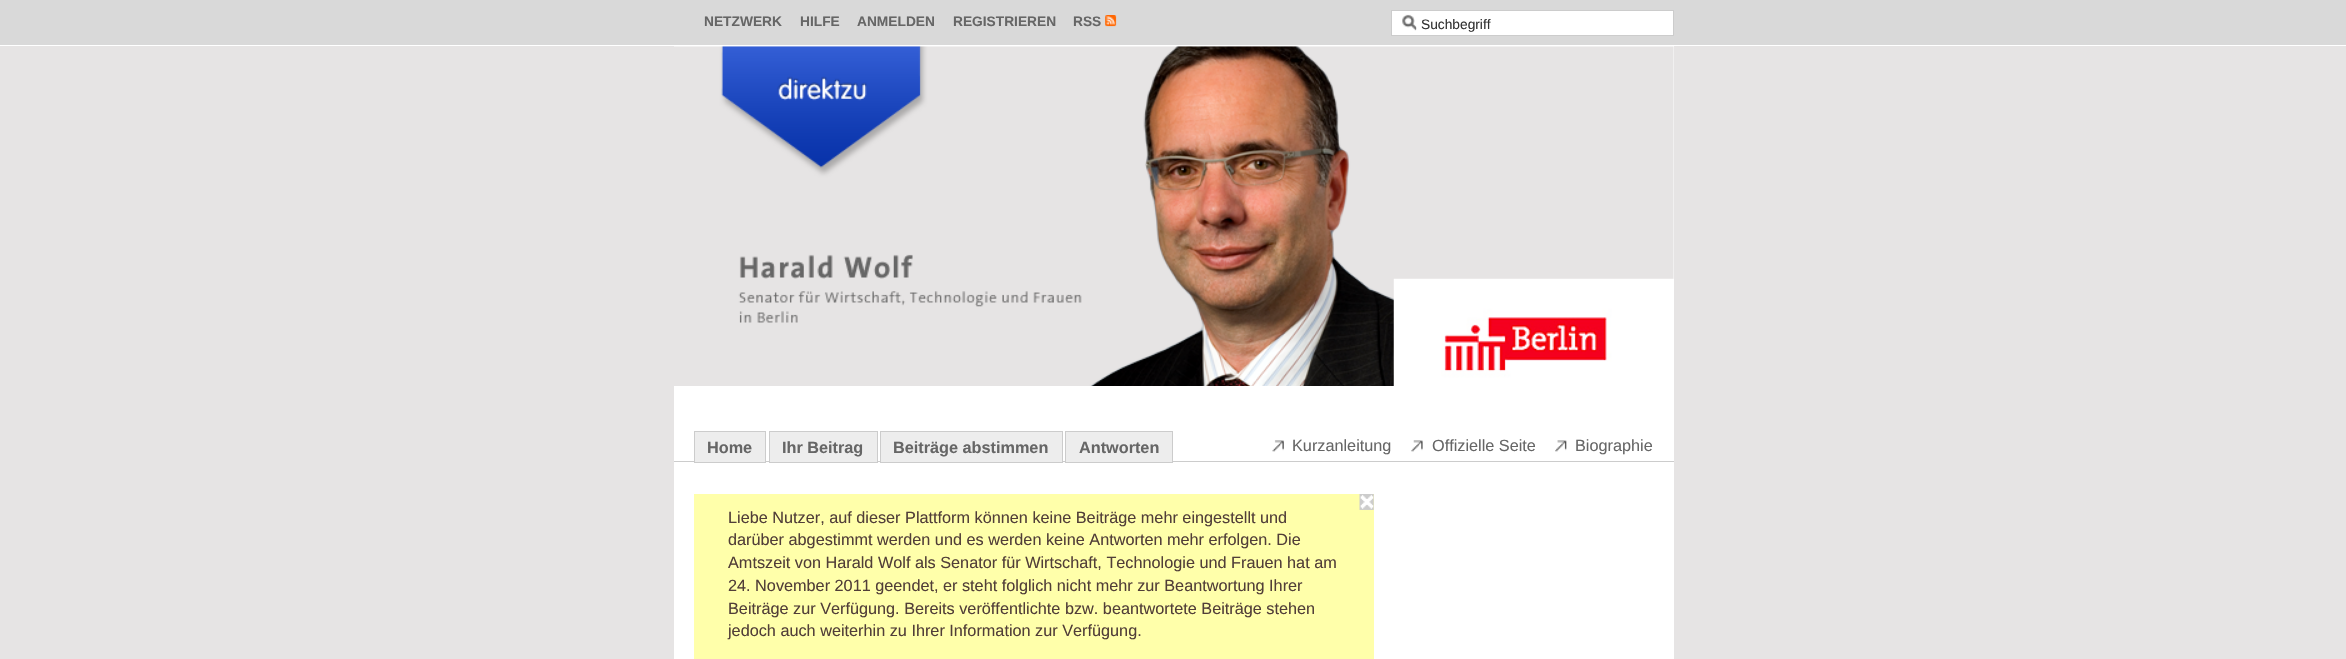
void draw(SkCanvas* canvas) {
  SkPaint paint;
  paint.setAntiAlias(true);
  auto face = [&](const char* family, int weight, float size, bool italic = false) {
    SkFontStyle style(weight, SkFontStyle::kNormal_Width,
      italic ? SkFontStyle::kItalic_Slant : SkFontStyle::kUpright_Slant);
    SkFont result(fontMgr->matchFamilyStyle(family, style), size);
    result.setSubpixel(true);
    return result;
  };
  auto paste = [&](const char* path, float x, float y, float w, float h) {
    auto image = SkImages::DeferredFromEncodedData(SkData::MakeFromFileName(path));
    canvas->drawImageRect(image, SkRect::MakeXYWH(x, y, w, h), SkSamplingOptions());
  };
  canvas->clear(0xffe6e4e4);
  paint.setColor(0xffd9d9d9);
  canvas->drawRect(SkRect::MakeXYWH(0, 0, 2346, 45), paint);
  paint.setColor(0xffffffff);
  canvas->drawRect(SkRect::MakeXYWH(0, 45, 2346, 1), paint);
  paste("img/1.png", 1105, 15, 12, 12);
  canvas->drawRect(SkRect::MakeXYWH(1391.5f, 10.5f, 282, 25), paint);
  paint.setStroke(true);
  paint.setStrokeWidth(1);
  paint.setColor(0xffcccccc);
  canvas->drawRect(SkRect::MakeXYWH(1391.5f, 10.5f, 282, 25), paint);
  paste("img/2.png", 1402, 14, 15, 17);
  paint.setStroke(false);
  paint.setColor(0xffffffff);
  canvas->drawRect(SkRect::MakeXYWH(674, 46, 1000, 613), paint);
  paste("img/3.png", 674, 46, 1000, 340);
  paint.setColor(0xffcccccc);
  canvas->drawRect(SkRect::MakeXYWH(674, 461, 1000, 1), paint);
  paint.setColor(0xffededed);
  canvas->drawRect(SkRect::MakeXYWH(694.5f, 431.5f, 71, 31), paint);
  paint.setStroke(true);
  paint.setColor(0xffcccccc);
  canvas->drawRect(SkRect::MakeXYWH(694.5f, 431.5f, 71, 31), paint);
  paint.setStroke(false);
  paint.setColor(0xffededed);
  canvas->drawRect(SkRect::MakeXYWH(769.5f, 431.5f, 108, 31), paint);
  paint.setStroke(true);
  paint.setColor(0xffcccccc);
  canvas->drawRect(SkRect::MakeXYWH(769.5f, 431.5f, 108, 31), paint);
  paint.setStroke(false);
  paint.setColor(0xffededed);
  canvas->drawRect(SkRect::MakeXYWH(880.5f, 431.5f, 182, 31), paint);
  paint.setStroke(true);
  paint.setColor(0xffcccccc);
  canvas->drawRect(SkRect::MakeXYWH(880.5f, 431.5f, 182, 31), paint);
  paint.setStroke(false);
  paint.setColor(0xffededed);
  canvas->drawRect(SkRect::MakeXYWH(1065.5f, 431.5f, 107, 31), paint);
  paint.setStroke(true);
  paint.setColor(0xffcccccc);
  canvas->drawRect(SkRect::MakeXYWH(1065.5f, 431.5f, 107, 31), paint);
  paste("img/4.png", 1272, 440, 12, 12);
  paste("img/5.png", 1411, 440, 12, 12);
  paste("img/6.png", 1555, 440, 12, 12);
  paint.setStroke(false);
  paint.setColor(0xffffffaa);
  canvas->drawRect(SkRect::MakeXYWH(694, 494, 680, 165), paint);
  paste("img/7.png", 1359, 494, 15, 16);
  auto f0 = face("Liberation Sans", 700, 13.75f);
  paint.setColor(0xff666666);
  {
    const struct { const char* s; float x, y; } items[] = {
      {"NETZWERK", 704, 26},
      {"HILFE", 800, 26},
      {"ANMELDEN", 857, 26},
      {"REGISTRIEREN", 953, 26},
      {"RSS", 1073, 26},
    };
    for (auto [s, x, y] : items) {
      canvas->drawString(s, x, y, f0, paint);
    }
  }
  auto f1 = face("Liberation Sans", 400, 13.75f);
  paint.setColor(0xff333333);
  canvas->drawString("Suchbegriff", 1421, 29, f1, paint);
  auto f2 = face("Liberation Sans", 700, 16.25f);
  paint.setColor(0xff666666);
  {
    const struct { const char* s; float x, y; } items[] = {
      {"Home", 707, 453},
      {"Ihr Beitrag", 782, 453},
      {"Beiträge abstimmen", 893, 453},
      {"Antworten", 1079, 453},
    };
    for (auto [s, x, y] : items) {
      canvas->drawString(s, x, y, f2, paint);
    }
  }
  auto f3 = face("Liberation Sans", 400, 16.25f);
  {
    const struct { const char* s; float x, y; } items[] = {
      {"Kurzanleitung", 1292, 451},
      {"Offizielle Seite", 1432, 451},
      {"Biographie", 1575, 451},
    };
    for (auto [s, x, y] : items) {
      canvas->drawString(s, x, y, f3, paint);
    }
  }
  paint.setColor(0xff513e38);
  {
    const struct { const char* s; float x, y; } items[] = {
      {"Liebe Nutzer, auf dieser Plattform können keine Beiträge mehr eingestellt und", 728, 523},
      {"darüber abgestimmt werden und es werden keine Antworten mehr erfolgen. Die", 728, 545},
      {"Amtszeit von Harald Wolf als Senator für Wirtschaft, Technologie und Frauen hat am", 728, 568},
      {"24. November 2011 geendet, er steht folglich nicht mehr zur Beantwortung Ihrer", 728, 591},
      {"Beiträge zur Verfügung. Bereits veröffentlichte bzw. beantwortete Beiträge stehen", 728, 614},
      {"jedoch auch weiterhin zu Ihrer Information zur Verfügung.", 728, 636},
    };
    for (auto [s, x, y] : items) {
      canvas->drawString(s, x, y, f3, paint);
    }
  }
}
